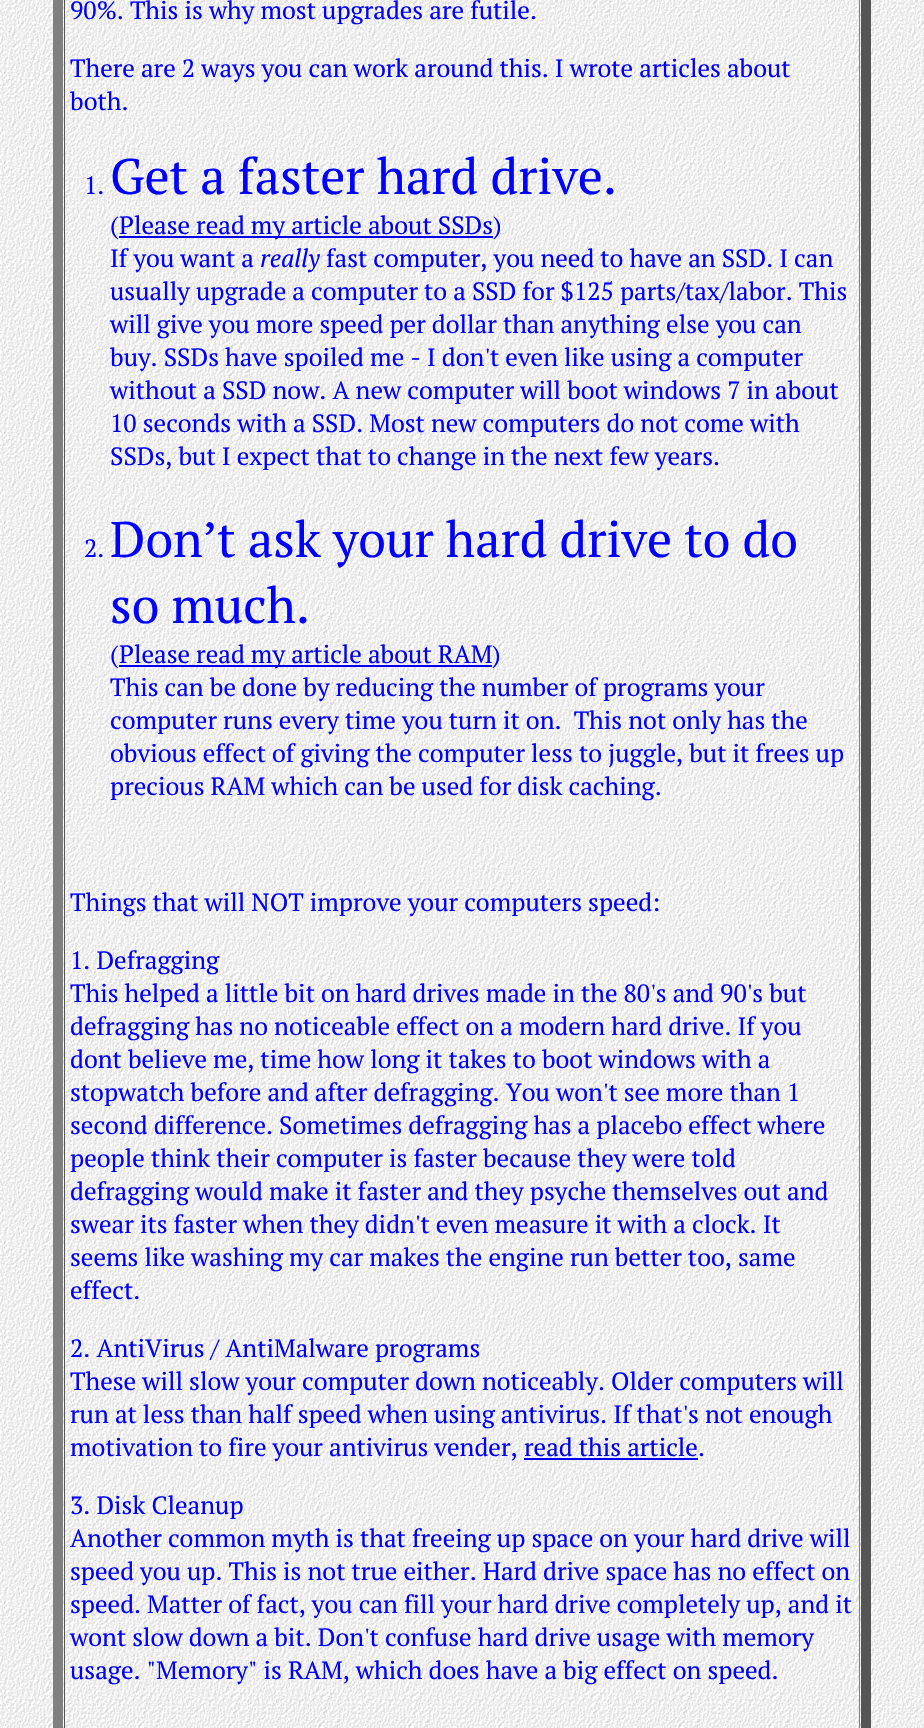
void draw(SkCanvas* canvas) {
  SkPaint paint;
  paint.setAntiAlias(true);
  auto face = [&](const char* family, int weight, float size, bool italic = false) {
    SkFontStyle style(weight, SkFontStyle::kNormal_Width,
      italic ? SkFontStyle::kItalic_Slant : SkFontStyle::kUpright_Slant);
    SkFont result(fontMgr->matchFamilyStyle(family, style), size);
    result.setSubpixel(true);
    return result;
  };
  auto paste = [&](const char* path, float x, float y, float w, float h) {
    auto image = SkImages::DeferredFromEncodedData(SkData::MakeFromFileName(path));
    canvas->drawImageRect(image, SkRect::MakeXYWH(x, y, w, h), SkSamplingOptions());
  };
  auto shape = [&](const char* data, bool evenOdd = false) {
    SkPath result = *SkParsePath::FromSVGString(data);
    if (evenOdd) result.setFillType(SkPathFillType::kEvenOdd);
    return result;
  };
  canvas->clear(0xffffffff);
  paste("img/1.png", 0, 0, 924, 1728);
  paint.setColor(0xff555555);
  canvas->drawPath(shape("M871-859V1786L861 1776V-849Z"), paint);
  paint.setColor(0xff808080);
  canvas->drawPath(shape("M53 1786V-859L63-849V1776Z"), paint);
  {
    const struct { float x, y, w, h; SkColor color; } items[] = {
      {859, 0, 1, 1728, 0xff808080},
      {64, 0, 1, 1728, 0xff555555},
      {119, 236, 374, 2, 0xff0000ee},
      {119, 665, 373, 2, 0xff0000ee},
      {524, 1458, 174, 2, 0xff0000ee},
    };
    for (auto [x, y, w, h, color] : items) {
      paint.setColor(color);
      canvas->drawRect(SkRect::MakeXYWH(x, y, w, h), paint);
    }
  }
  auto f0 = face("PT Serif", 400, 25);
  paint.setColor(0xff0000ff);
  {
    const struct { const char* s; float x, y; } items[] = {
      {"90%. This is why most upgrades are futile.", 70, 19},
      {"There are 2 ways you can work around this. I wrote articles about", 70, 77},
      {"both.", 70, 110},
      {"1.", 84, 194},
    };
    for (auto [s, x, y] : items) {
      canvas->drawString(s, x, y, f0, paint);
    }
  }
  auto f1 = face("PT Serif", 400, 50);
  canvas->drawString("Get a faster hard drive.", 110, 194, f1, paint);
  canvas->drawString("(", 110, 234, f0, paint);
  paint.setColor(0xff0000ee);
  canvas->drawString("Please read my article about SSDs", 119, 234, f0, paint);
  paint.setColor(0xff0000ff);
  canvas->drawString(")", 493, 234, f0, paint);
  canvas->drawString("If you want a", 110, 267, f0, paint);
  auto f2 = face("PT Serif", 400, 25, true);
  canvas->drawString("really", 260, 267, f2, paint);
  {
    const struct { const char* s; float x, y; } items[] = {
      {"fast computer, you need to have an SSD. I can", 326, 267},
      {"usually upgrade a computer to a SSD for $125 parts/tax/labor. This", 110, 300},
      {"will give you more speed per dollar than anything else you can", 110, 333},
      {"buy. SSDs have spoiled me - I don't even like using a computer", 110, 366},
      {"without a SSD now. A new computer will boot windows 7 in about", 110, 399},
      {"10 seconds with a SSD. Most new computers do not come with", 110, 432},
      {"SSDs, but I expect that to change in the next few years.", 110, 465},
      {"2.", 84, 557},
    };
    for (auto [s, x, y] : items) {
      canvas->drawString(s, x, y, f0, paint);
    }
  }
  canvas->drawString("Don’t ask your hard drive to do", 110, 557, f1, paint);
  canvas->drawString("so much.", 110, 623, f1, paint);
  canvas->drawString("(", 110, 663, f0, paint);
  paint.setColor(0xff0000ee);
  canvas->drawString("Please read my article about RAM", 119, 663, f0, paint);
  paint.setColor(0xff0000ff);
  {
    const struct { const char* s; float x, y; } items[] = {
      {")", 492, 663},
      {"This can be done by reducing the number of programs your", 110, 696},
      {"computer runs every time you turn it on.  This not only has the", 110, 729},
      {"obvious effect of giving the computer less to juggle, but it frees up", 110, 762},
      {"precious RAM which can be used for disk caching.", 110, 795},
      {"Things that will NOT improve your computers speed:", 70, 911},
      {"1. Defragging", 70, 969},
      {"This helped a little bit on hard drives made in the 80's and 90's but", 70, 1002},
      {"defragging has no noticeable effect on a modern hard drive. If you", 70, 1035},
      {"dont believe me, time how long it takes to boot windows with a", 70, 1068},
      {"stopwatch before and after defragging. You won't see more than 1", 70, 1101},
      {"second difference. Sometimes defragging has a placebo effect where", 70, 1134},
      {"people think their computer is faster because they were told", 70, 1167},
      {"defragging would make it faster and they psyche themselves out and", 70, 1200},
      {"swear its faster when they didn't even measure it with a clock. It", 70, 1233},
      {"seems like washing my car makes the engine run better too, same", 70, 1266},
      {"effect.", 70, 1299},
      {"2. AntiVirus / AntiMalware programs", 70, 1357},
      {"These will slow your computer down noticeably. Older computers will", 70, 1390},
      {"run at less than half speed when using antivirus. If that's not enough", 70, 1423},
      {"motivation to fire your antivirus vender,", 70, 1456},
    };
    for (auto [s, x, y] : items) {
      canvas->drawString(s, x, y, f0, paint);
    }
  }
  paint.setColor(0xff0000ee);
  canvas->drawString("read this article", 524, 1456, f0, paint);
  paint.setColor(0xff0000ff);
  {
    const struct { const char* s; float x, y; } items[] = {
      {".", 698, 1456},
      {"3. Disk Cleanup", 70, 1514},
      {"Another common myth is that freeing up space on your hard drive will", 70, 1547},
      {"speed you up. This is not true either. Hard drive space has no effect on", 70, 1580},
      {"speed. Matter of fact, you can fill your hard drive completely up, and it", 70, 1613},
      {"wont slow down a bit. Don't confuse hard drive usage with memory", 70, 1646},
      {"usage. \"Memory\" is RAM, which does have a big effect on speed.", 70, 1679},
    };
    for (auto [s, x, y] : items) {
      canvas->drawString(s, x, y, f0, paint);
    }
  }
}
